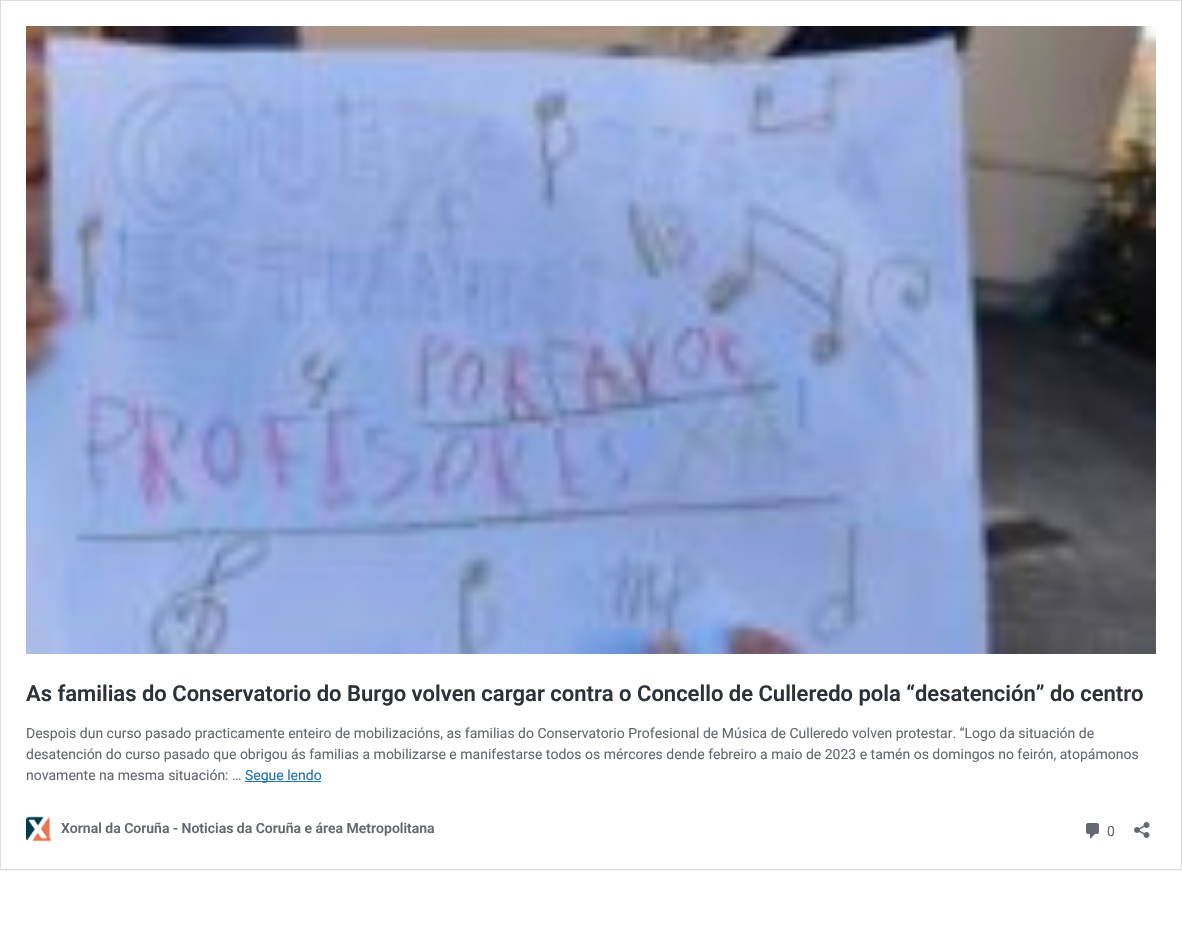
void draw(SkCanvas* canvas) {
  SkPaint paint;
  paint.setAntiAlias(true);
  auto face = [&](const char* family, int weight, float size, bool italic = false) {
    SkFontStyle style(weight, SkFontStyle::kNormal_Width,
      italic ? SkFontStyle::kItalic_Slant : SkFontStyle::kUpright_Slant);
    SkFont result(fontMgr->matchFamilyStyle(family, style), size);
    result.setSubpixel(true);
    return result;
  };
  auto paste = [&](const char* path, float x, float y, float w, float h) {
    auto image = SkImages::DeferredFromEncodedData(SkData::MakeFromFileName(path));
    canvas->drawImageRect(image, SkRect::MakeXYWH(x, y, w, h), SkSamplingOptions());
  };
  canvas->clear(0xffffffff);
  canvas->save();
  canvas->clipRect(SkRect::MakeXYWH(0, 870, 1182, 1));
  paint.setColor(0x0d000000);
  paint.setMaskFilter(SkMaskFilter::MakeBlur(kNormal_SkBlurStyle, 0.5f));
  canvas->drawRect(SkRect::MakeXYWH(0, 1, 1182, 870), paint);
  paint.setMaskFilter(nullptr);
  canvas->restore();
  paint.setStroke(true);
  paint.setStrokeWidth(1);
  paint.setColor(0xffdcdcde);
  canvas->drawRect(SkRect::MakeXYWH(0.5f, 0.5f, 1181, 869), paint);
  paste("img/1.png", 26, 26, 1130, 628);
  paint.setStroke(false);
  paint.setColor(0xff2271b1);
  canvas->drawRect(SkRect::MakeXYWH(245, 781, 76, 1), paint);
  paste("img/2.png", 26, 816, 25, 26);
  paste("img/3.png", 1086, 823, 13, 16);
  paste("img/4.png", 1134, 822, 16, 16);
  auto f0 = face("Roboto", 600, 22);
  paint.setColor(0xff2c3338);
  canvas->drawString("As familias do Conservatorio do Burgo volven cargar contra o Concello de Culleredo pola “desatención” do centro", 26, 701, f0, paint);
  auto f1 = face("Roboto", 400, 14);
  paint.setColor(0xff646970);
  {
    const struct { const char* s; float x, y; } items[] = {
      {"Despois dun curso pasado practicamente enteiro de mobilizacións, as familias do Conservatorio Profesional de Música de Culleredo volven protestar. “Logo da situación de", 26, 738},
      {"desatención do curso pasado que obrigou ás familias a mobilizarse e manifestarse todos os mércores dende febreiro a maio de 2023 e tamén os domingos no feirón, atopámonos", 26, 759},
      {"novamente na mesma situación: …", 26, 780},
    };
    for (auto [s, x, y] : items) {
      canvas->drawString(s, x, y, f1, paint);
    }
  }
  paint.setColor(0xff2271b1);
  canvas->drawString("Segue lendo", 245, 780, f1, paint);
  auto f2 = face("Roboto", 600, 14);
  paint.setColor(0xff646970);
  canvas->drawString("Xornal da Coruña - Noticias da Coruña e área Metropolitana", 61, 833, f2, paint);
  canvas->drawString("0", 1107, 836, f1, paint);
}
